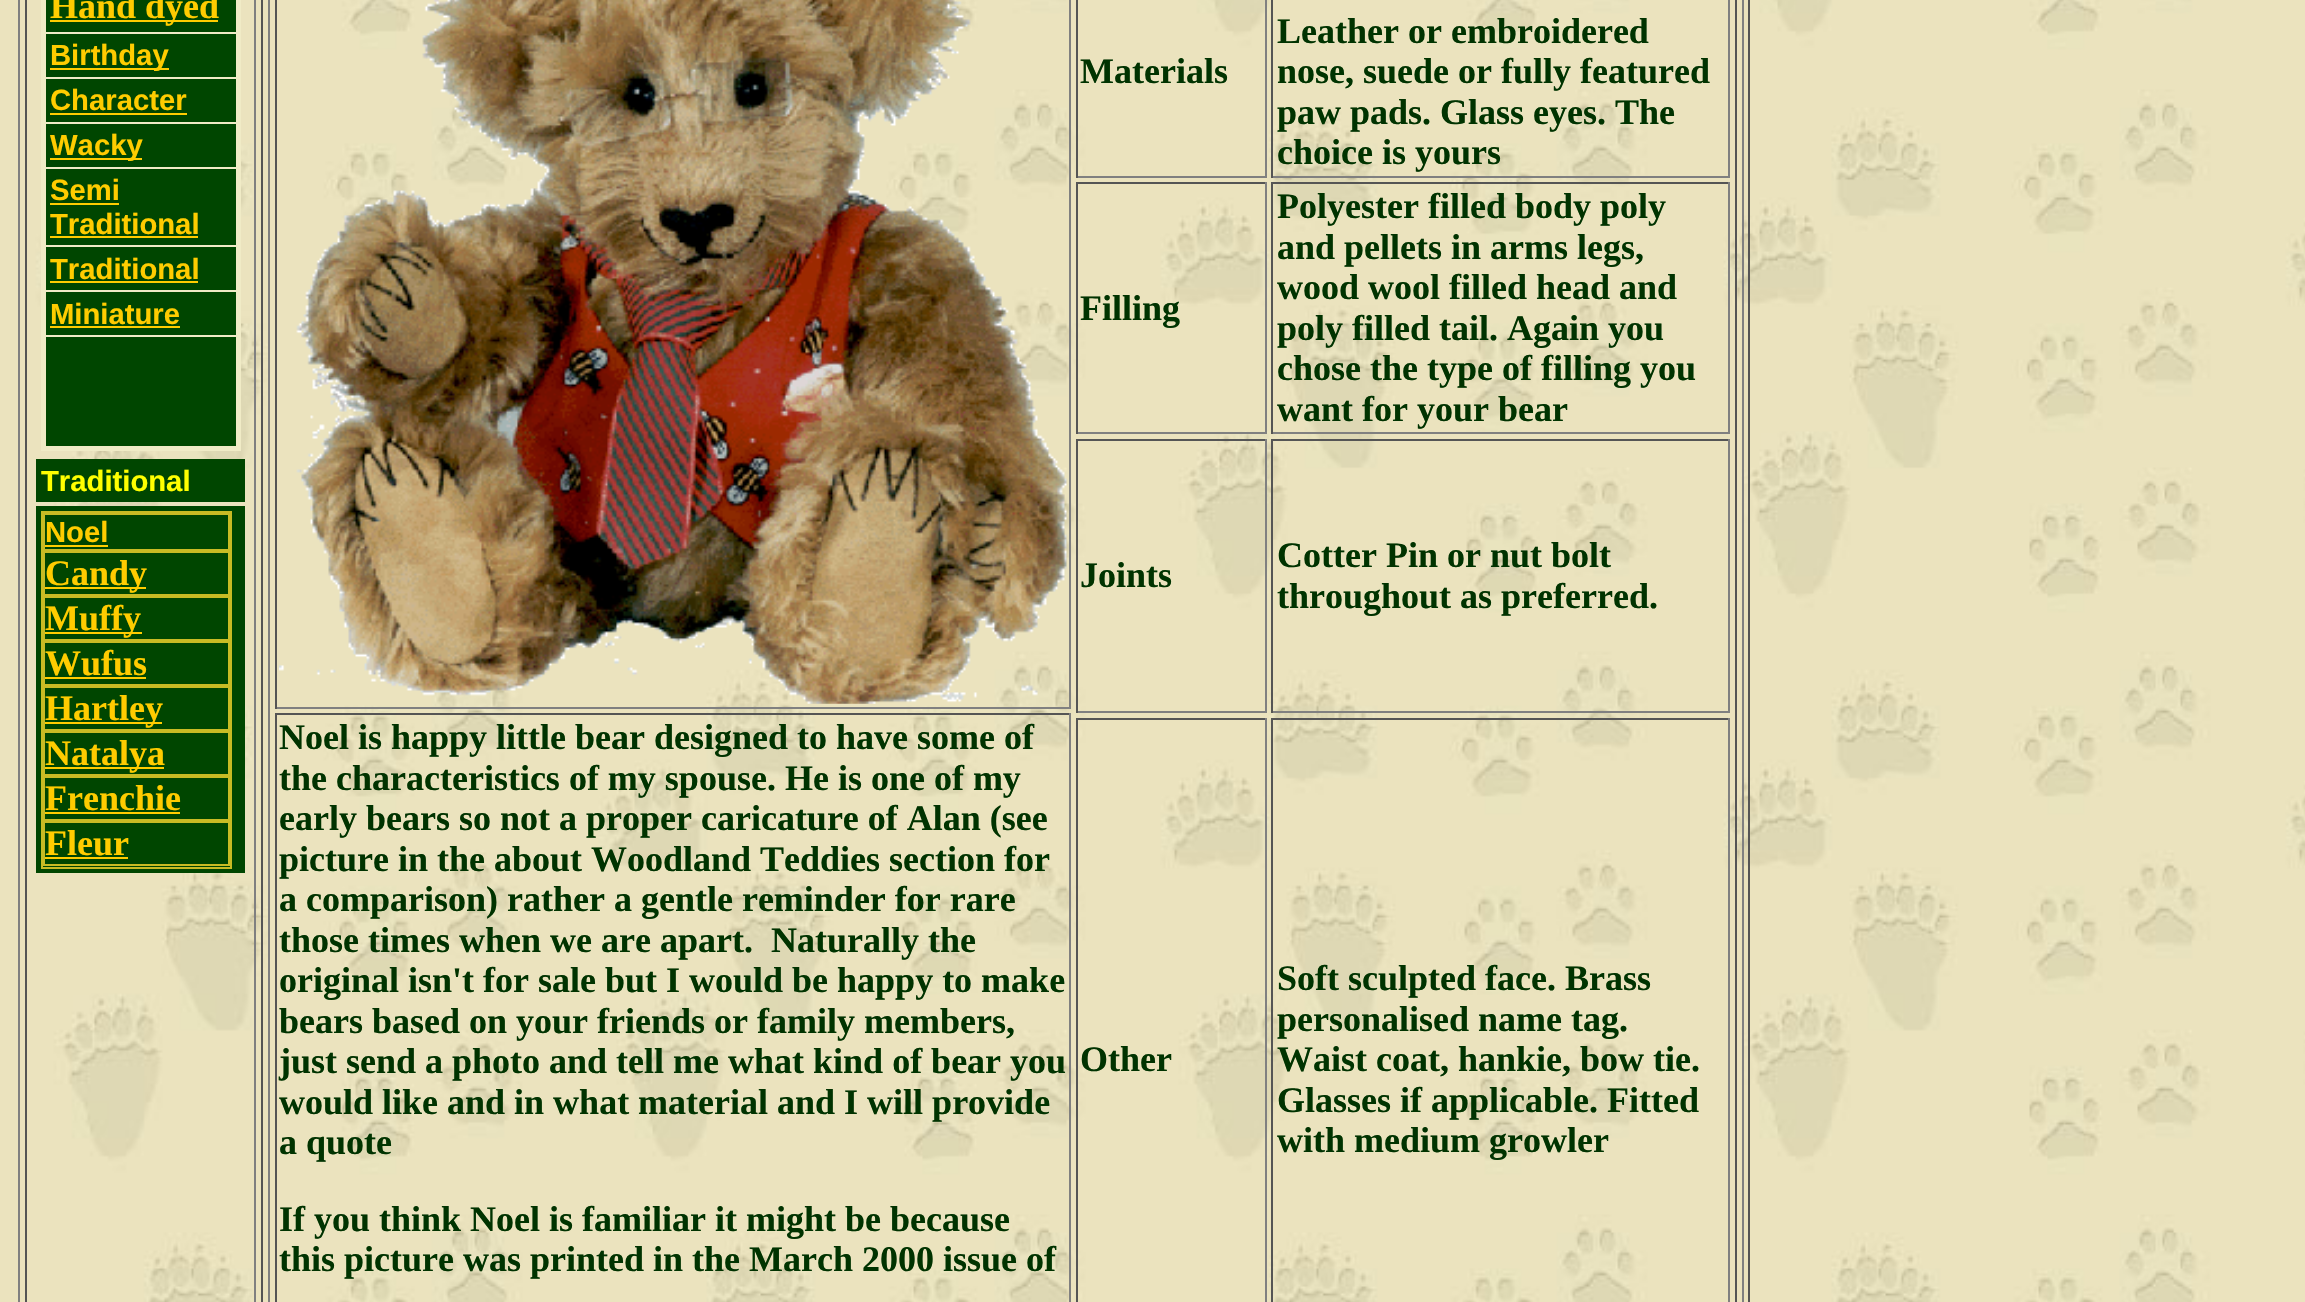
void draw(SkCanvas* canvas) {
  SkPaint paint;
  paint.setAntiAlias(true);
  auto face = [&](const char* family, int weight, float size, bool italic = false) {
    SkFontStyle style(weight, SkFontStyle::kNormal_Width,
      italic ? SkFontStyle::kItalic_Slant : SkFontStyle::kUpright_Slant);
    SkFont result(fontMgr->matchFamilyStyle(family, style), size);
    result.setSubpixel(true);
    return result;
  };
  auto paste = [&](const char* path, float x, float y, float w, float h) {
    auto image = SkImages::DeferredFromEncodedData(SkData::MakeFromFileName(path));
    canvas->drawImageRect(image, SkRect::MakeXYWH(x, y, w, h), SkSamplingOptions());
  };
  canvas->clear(0xffffffff);
  paste("img/1.png", 0, 0, 2305, 1302);
  {
    const struct { float x, y, w, h; SkColor color; } items[] = {
      {1748, 0, 2, 1302, 0xff555555},
      {18, 0, 2, 1302, 0xff808080},
      {254, 0, 2, 1302, 0xff808080},
      {25, 0, 2, 1302, 0xff555555},
      {43, 32, 198, 2, 0xfff0ebc6},
      {43, 77, 198, 2, 0xfff0ebc6},
      {43, 122, 198, 2, 0xfff0ebc6},
      {43, 167, 198, 2, 0xfff0ebc6},
      {46, 169, 190, 277, 0xff004600},
      {43, 245, 198, 2, 0xfff0ebc6},
      {43, 290, 198, 2, 0xfff0ebc6},
      {43, 335, 198, 2, 0xfff0ebc6},
      {236, 0, 5, 450, 0xfff0ebc6},
      {41, 446, 200, 5, 0xfff0ebc6},
      {41, 0, 5, 450, 0xfff0ebc6},
      {46, 0, 190, 32, 0xff004600},
      {50, 20, 168, 2, 0xffffcc00},
      {46, 34, 190, 43, 0xff004600},
      {50, 68, 119, 2, 0xffffcc00},
      {46, 79, 190, 43, 0xff004600},
      {50, 113, 137, 2, 0xffffcc00},
      {46, 124, 190, 43, 0xff004600},
      {50, 158, 92, 2, 0xffffcc00},
      {50, 203, 69, 2, 0xffffcc00},
      {50, 236, 148, 2, 0xffffcc00},
      {50, 281, 148, 2, 0xffffcc00},
      {50, 326, 130, 2, 0xffffcc00},
      {36, 459, 209, 43, 0xff004600},
      {36, 506, 209, 367, 0xff004600},
    };
    for (auto [x, y, w, h, color] : items) {
      paint.setColor(color);
      canvas->drawRect(SkRect::MakeXYWH(x, y, w, h), paint);
    }
  }
  paint.setStroke(true);
  paint.setStrokeWidth(2);
  paint.setColor(0xffc8bb24);
  canvas->drawRect(SkRect::MakeXYWH(42, 512, 189, 356), paint);
  canvas->drawRect(SkRect::MakeXYWH(44, 514, 185, 36), paint);
  paint.setStroke(false);
  paint.setColor(0xffffcc00);
  canvas->drawRect(SkRect::MakeXYWH(45, 545, 63, 2), paint);
  paint.setStroke(true);
  paint.setColor(0xffc8bb24);
  canvas->drawRect(SkRect::MakeXYWH(44, 552, 185, 43), paint);
  paint.setStroke(false);
  paint.setColor(0xffffcc00);
  canvas->drawRect(SkRect::MakeXYWH(45, 587, 101, 2), paint);
  paint.setStroke(true);
  paint.setColor(0xffc8bb24);
  canvas->drawRect(SkRect::MakeXYWH(44, 597, 185, 43), paint);
  paint.setStroke(false);
  paint.setColor(0xffffcc00);
  canvas->drawRect(SkRect::MakeXYWH(45, 632, 97, 2), paint);
  paint.setStroke(true);
  paint.setColor(0xffc8bb24);
  canvas->drawRect(SkRect::MakeXYWH(44, 642, 185, 43), paint);
  paint.setStroke(false);
  paint.setColor(0xffffcc00);
  canvas->drawRect(SkRect::MakeXYWH(45, 677, 101, 2), paint);
  paint.setStroke(true);
  paint.setColor(0xffc8bb24);
  canvas->drawRect(SkRect::MakeXYWH(44, 687, 185, 43), paint);
  paint.setStroke(false);
  paint.setColor(0xffffcc00);
  canvas->drawRect(SkRect::MakeXYWH(45, 722, 117, 2), paint);
  paint.setStroke(true);
  paint.setColor(0xffc8bb24);
  canvas->drawRect(SkRect::MakeXYWH(44, 732, 185, 43), paint);
  paint.setStroke(false);
  paint.setColor(0xffffcc00);
  canvas->drawRect(SkRect::MakeXYWH(45, 767, 119, 2), paint);
  paint.setStroke(true);
  paint.setColor(0xffc8bb24);
  canvas->drawRect(SkRect::MakeXYWH(44, 777, 185, 43), paint);
  paint.setStroke(false);
  paint.setColor(0xffffcc00);
  canvas->drawRect(SkRect::MakeXYWH(45, 812, 135, 2), paint);
  paint.setStroke(true);
  paint.setColor(0xffc8bb24);
  canvas->drawRect(SkRect::MakeXYWH(44, 822, 185, 43), paint);
  paint.setStroke(false);
  {
    const struct { float x, y, w, h; SkColor color; } items[] = {
      {45, 857, 83, 2, 0xffffcc00},
      {1742, 0, 2, 1302, 0xff808080},
      {261, 0, 2, 1302, 0xff555555},
      {1735, 0, 2, 1302, 0xff555555},
      {268, 0, 2, 1302, 0xff808080},
      {1069, 0, 2, 709, 0xff808080},
      {275, 707, 796, 2, 0xff808080},
      {275, 0, 2, 709, 0xff555555},
    };
    for (auto [x, y, w, h, color] : items) {
      paint.setColor(color);
      canvas->drawRect(SkRect::MakeXYWH(x, y, w, h), paint);
    }
  }
  paste("img/2.png", 279, 0, 788, 704);
  {
    const struct { float x, y, w, h; SkColor color; } items[] = {
      {1265, 0, 2, 178, 0xff808080},
      {1076, 176, 191, 2, 0xff808080},
      {1076, 0, 2, 178, 0xff555555},
      {1728, 0, 2, 178, 0xff808080},
      {1271, 176, 459, 2, 0xff808080},
      {1271, 0, 2, 178, 0xff555555},
      {1076, 182, 191, 2, 0xff555555},
      {1265, 182, 2, 252, 0xff808080},
      {1076, 432, 191, 2, 0xff808080},
      {1076, 182, 2, 252, 0xff555555},
      {1271, 182, 459, 2, 0xff555555},
      {1728, 182, 2, 252, 0xff808080},
      {1271, 432, 459, 2, 0xff808080},
      {1271, 182, 2, 252, 0xff555555},
      {1076, 439, 191, 2, 0xff555555},
      {1265, 439, 2, 274, 0xff808080},
      {1076, 711, 191, 2, 0xff808080},
      {1076, 439, 2, 274, 0xff555555},
      {1271, 439, 459, 2, 0xff555555},
      {1728, 439, 2, 274, 0xff808080},
      {1271, 711, 459, 2, 0xff808080},
      {1271, 439, 2, 274, 0xff555555},
      {275, 713, 796, 2, 0xff555555},
      {1069, 713, 2, 589, 0xff808080},
      {275, 713, 2, 589, 0xff555555},
      {1076, 718, 191, 2, 0xff555555},
      {1265, 718, 2, 584, 0xff808080},
      {1076, 718, 2, 584, 0xff555555},
      {1271, 718, 459, 2, 0xff555555},
      {1728, 718, 2, 584, 0xff808080},
      {1271, 718, 2, 584, 0xff555555},
    };
    for (auto [x, y, w, h, color] : items) {
      paint.setColor(color);
      canvas->drawRect(SkRect::MakeXYWH(x, y, w, h), paint);
    }
  }
  auto f0 = face("Liberation Serif", 700, 36);
  paint.setColor(0xffffcc00);
  canvas->drawString("Hand dyed", 50, 18, f0, paint);
  auto f1 = face("Liberation Sans", 700, 29.25f);
  {
    const struct { const char* s; float x, y; } items[] = {
      {"Birthday", 50, 65},
      {"Character", 50, 110},
      {"Wacky", 50, 155},
      {"Semi", 50, 200},
      {"Traditional", 50, 234},
      {"Traditional", 50, 279},
      {"Miniature", 50, 324},
    };
    for (auto [s, x, y] : items) {
      canvas->drawString(s, x, y, f1, paint);
    }
  }
  paint.setColor(0xffffff00);
  canvas->drawString("Traditional", 41, 491, f1, paint);
  paint.setColor(0xffffcc00);
  canvas->drawString("Noel", 45, 542, f1, paint);
  {
    const struct { const char* s; float x, y; } items[] = {
      {"Candy", 45, 585},
      {"Muffy", 45, 630},
      {"Wufus", 45, 675},
      {"Hartley", 45, 720},
      {"Natalya", 45, 765},
      {"Frenchie", 45, 810},
      {"Fleur", 45, 855},
    };
    for (auto [s, x, y] : items) {
      canvas->drawString(s, x, y, f0, paint);
    }
  }
  paint.setColor(0xff003300);
  {
    const struct { const char* s; float x, y; } items[] = {
      {"Materials", 1080, 83},
      {"Leather or embroidered", 1277, 43},
      {"nose, suede or fully featured", 1277, 83},
      {"paw pads. Glass eyes. The", 1277, 124},
      {"choice is yours", 1277, 164},
      {"Filling", 1080, 320},
      {"Polyester filled body poly", 1277, 218},
      {"and pellets in arms legs,", 1277, 259},
      {"wood wool filled head and", 1277, 299},
      {"poly filled tail. Again you", 1277, 340},
      {"chose the type of filling you", 1277, 380},
      {"want for your bear", 1277, 421},
      {"Joints", 1080, 587},
      {"Cotter Pin or nut bolt", 1277, 567},
      {"throughout as preferred.", 1277, 608},
      {"Noel is happy little bear designed to have some of", 279, 749},
      {"the characteristics of my spouse. He is one of my", 279, 790},
      {"early bears so not a proper caricature of Alan (see", 279, 830},
      {"picture in the about Woodland Teddies section for", 279, 871},
      {"a comparison) rather a gentle reminder for rare", 279, 911},
      {"those times when we are apart.  Naturally the", 279, 952},
      {"original isn't for sale but I would be happy to make", 279, 992},
      {"bears based on your friends or family members,", 279, 1033},
      {"just send a photo and tell me what kind of bear you", 279, 1073},
      {"would like and in what material and I will provide", 279, 1114},
      {"a quote", 279, 1154},
      {"If you think Noel is familiar it might be because", 279, 1231},
      {"this picture was printed in the March 2000 issue of", 279, 1271},
      {"Other", 1080, 1071},
      {"Soft sculpted face. Brass", 1277, 990},
      {"personalised name tag.", 1277, 1031},
      {"Waist coat, hankie, bow tie.", 1277, 1071},
      {"Glasses if applicable. Fitted", 1277, 1112},
      {"with medium growler", 1277, 1152},
    };
    for (auto [s, x, y] : items) {
      canvas->drawString(s, x, y, f0, paint);
    }
  }
}
